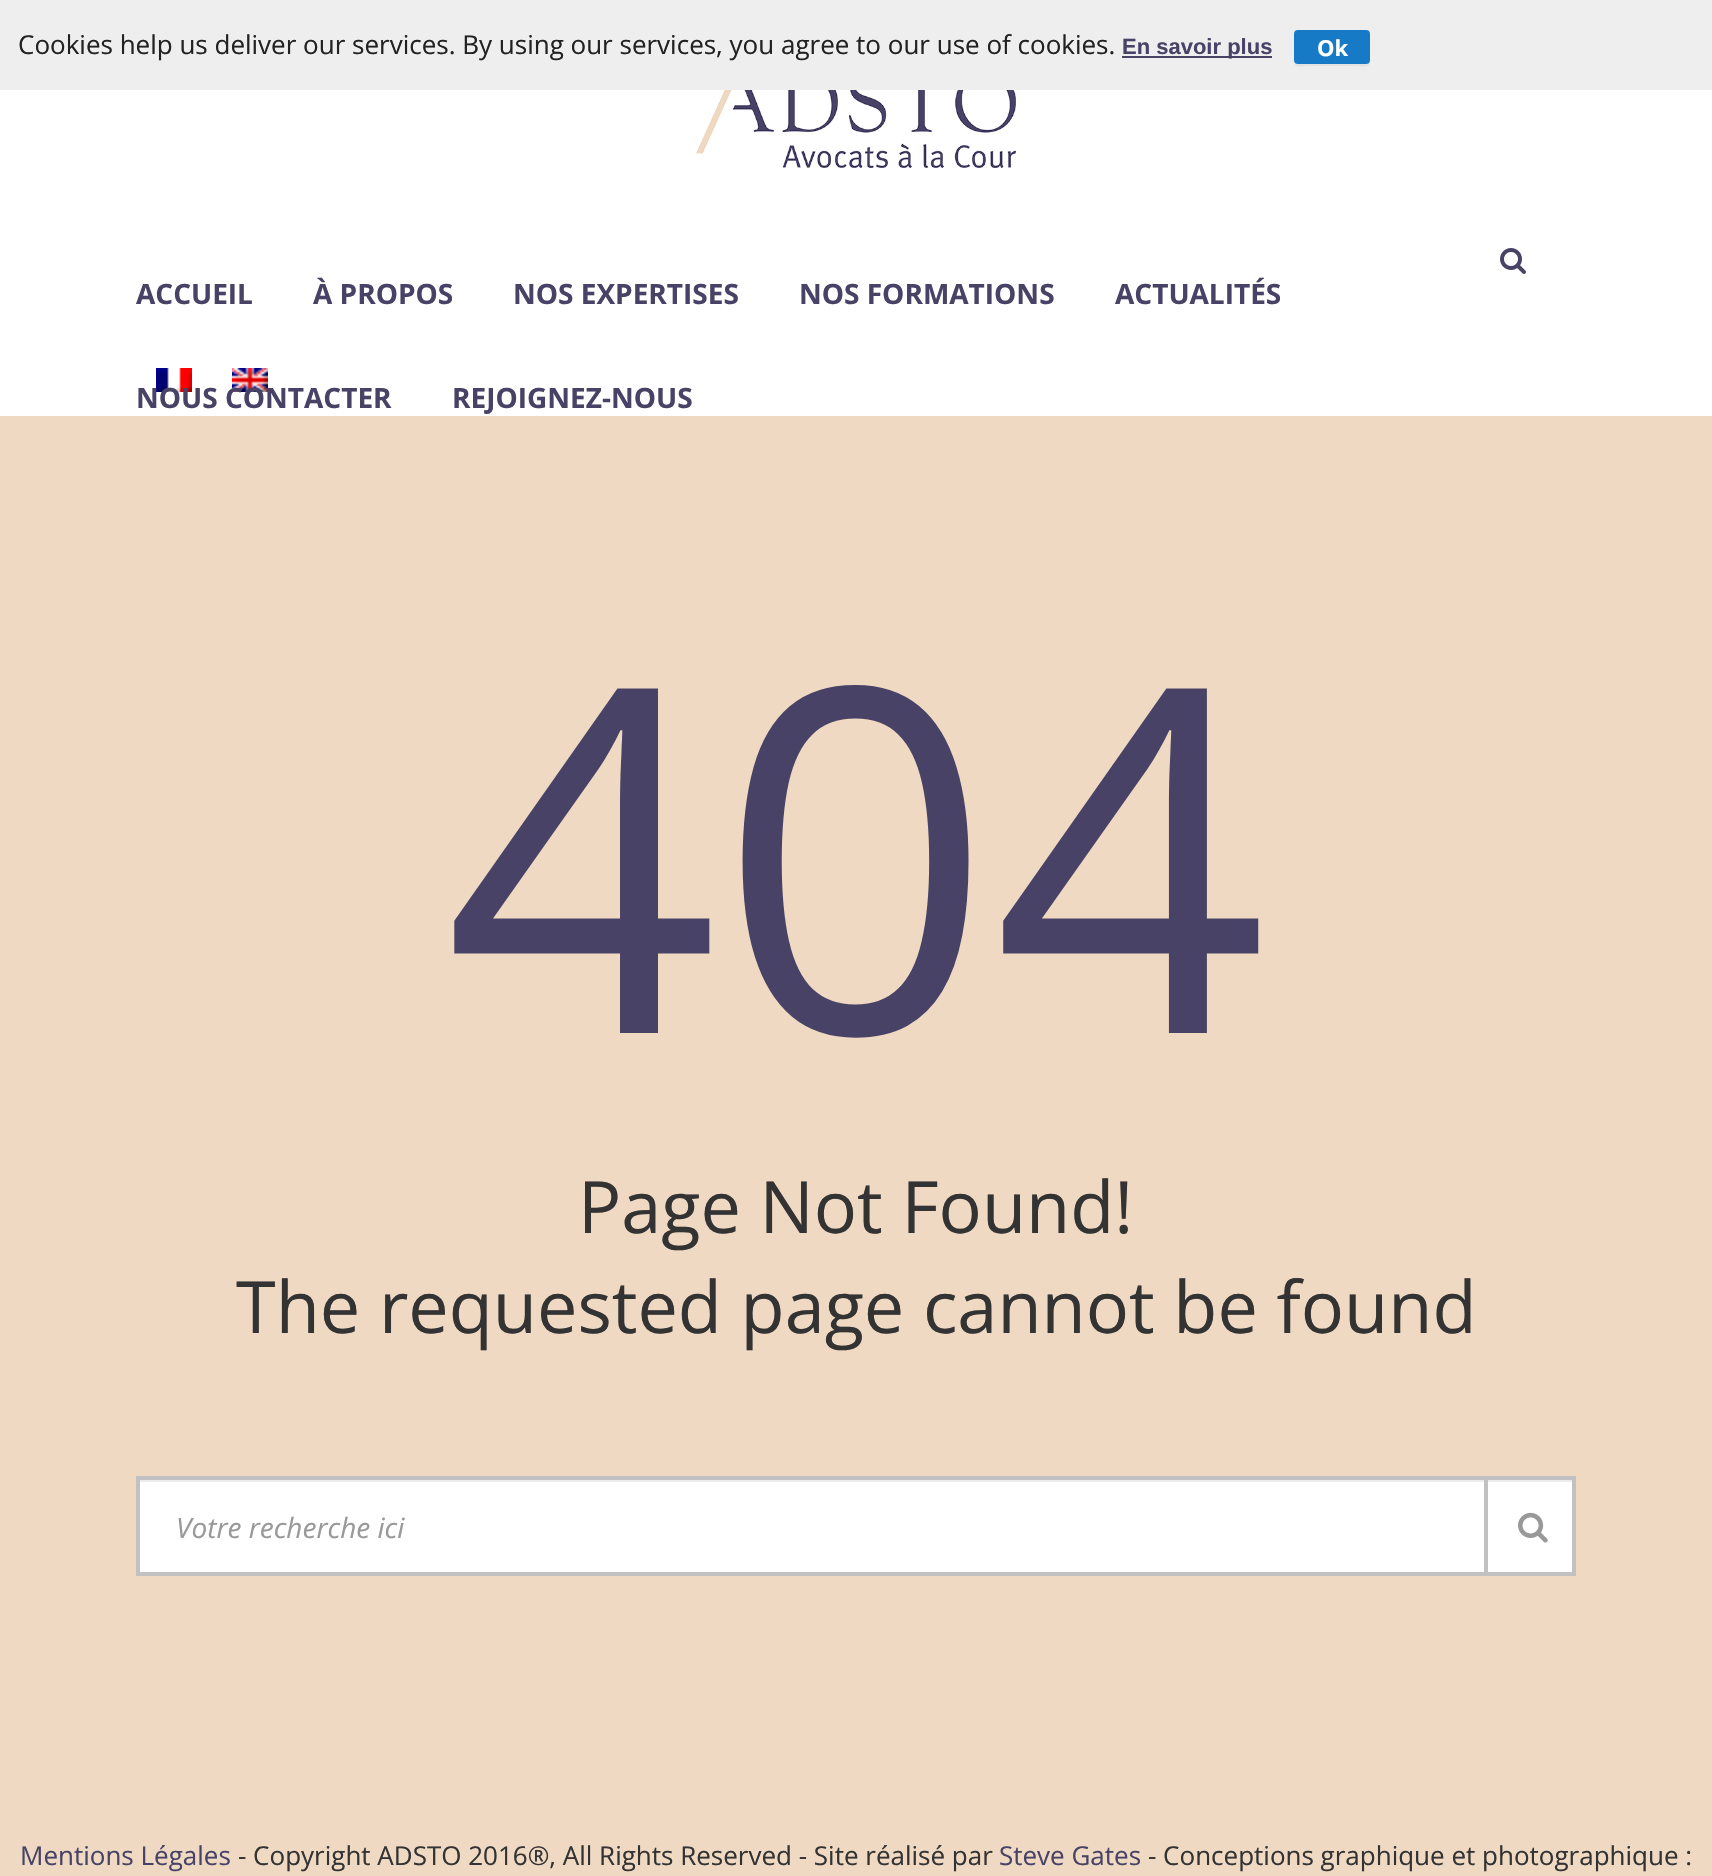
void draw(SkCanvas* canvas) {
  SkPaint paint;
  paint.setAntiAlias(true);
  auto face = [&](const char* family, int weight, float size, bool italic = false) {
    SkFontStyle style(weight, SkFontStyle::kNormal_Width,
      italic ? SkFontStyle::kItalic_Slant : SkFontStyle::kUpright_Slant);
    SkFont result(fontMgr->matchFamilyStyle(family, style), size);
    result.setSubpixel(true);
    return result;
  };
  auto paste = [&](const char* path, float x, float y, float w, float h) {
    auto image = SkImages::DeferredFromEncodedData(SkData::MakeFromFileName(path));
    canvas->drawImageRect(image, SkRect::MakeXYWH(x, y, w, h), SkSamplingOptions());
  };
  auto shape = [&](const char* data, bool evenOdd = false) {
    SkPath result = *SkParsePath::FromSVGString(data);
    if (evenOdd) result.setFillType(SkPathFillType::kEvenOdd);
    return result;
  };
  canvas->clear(0xffefd9c2);
  paint.setColor(0xffeeeeee);
  canvas->drawRect(SkRect::MakeXYWH(0, 0, 1712, 90), paint);
  paint.setColor(0xff484366);
  canvas->drawRect(SkRect::MakeXYWH(1122, 56, 150, 2), paint);
  paint.setColor(0xffe2e2e2);
  canvas->drawPath(shape("M1294 60C1294 69 1301 66 1309 66H1355C1363 66 1370 69 1370 60C1370 62 1368 64 1366 64H1298C1296 64 1294 62 1294 60Z"), paint);
  paint.setColor(0xff167ac6);
  canvas->drawRoundRect(SkRect::MakeXYWH(1294, 30, 76, 34), 4, 4, paint);
  paint.setColor(0xffffffff);
  canvas->drawRect(SkRect::MakeXYWH(0, 90, 1712, 326), paint);
  paste("img/1.png", 696, 90, 320, 78);
  paste("img/2.png", 1500, 248, 26, 26);
  paste("img/3.png", 156, 368, 36, 24);
  paste("img/4.png", 232, 368, 36, 24);
  canvas->drawRect(SkRect::MakeXYWH(140, 1482, 1432, 90), paint);
  paint.setColor(0xffececec);
  canvas->drawRect(SkRect::MakeXYWH(140, 1480, 1432, 2), paint);
  paint.setStroke(true);
  paint.setStrokeWidth(4);
  paint.setColor(0xffc1c1c1);
  canvas->drawRect(SkRect::MakeXYWH(138, 1478, 1436, 96), paint);
  paint.setStroke(false);
  canvas->drawRect(SkRect::MakeXYWH(1484, 1476, 4, 100), paint);
  paste("img/5.png", 1518, 1512, 30, 31);
  auto f0 = face("Open Sans", 400, 26);
  paint.setColor(0xff222222);
  canvas->drawString("Cookies help us deliver our services. By using our services, you agree to our use of cookies.", 18, 54, f0, paint);
  auto f1 = face("Liberation Sans", 700, 22);
  paint.setColor(0xff484366);
  canvas->drawString("En savoir plus", 1122, 54, f1, paint);
  auto f2 = face("Open Sans", 700, 22);
  paint.setColor(0xffffffff);
  canvas->drawString("Ok", 1317, 56, f2, paint);
  auto f3 = face("Open Sans", 700, 28);
  paint.setColor(0xff484366);
  {
    const struct { const char* s; float x, y; } items[] = {
      {"ACCUEIL", 136, 304},
      {"À PROPOS", 313, 304},
      {"NOS EXPERTISES", 513, 304},
      {"NOS FORMATIONS", 799, 304},
      {"ACTUALITÉS", 1115, 304},
      {"NOUS CONTACTER", 136, 408},
      {"REJOIGNEZ-NOUS", 452, 408},
    };
    for (auto [s, x, y] : items) {
      canvas->drawString(s, x, y, f3, paint);
    }
  }
  auto f4 = face("Open Sans", 400, 480);
  canvas->drawString("404", 444, 1033, f4, paint);
  auto f5 = face("Open Sans", 400, 72);
  paint.setColor(0xff333333);
  canvas->drawString("Page Not Found!", 578, 1233, f5, paint);
  canvas->drawString("The requested page cannot be found", 236, 1333, f5, paint);
  auto f6 = face("Open Sans", 400, 28, true);
  paint.setColor(0xff999999);
  canvas->drawString("Votre recherche ici", 176, 1538, f6, paint);
  paint.setColor(0xff484366);
  canvas->drawString("Mentions Légales", 20, 1865, f0, paint);
  paint.setColor(0xff333333);
  canvas->drawString("- Copyright ADSTO 2016®, All Rights Reserved - Site réalisé par", 238, 1865, f0, paint);
  paint.setColor(0xff484366);
  canvas->drawString("Steve Gates", 999, 1865, f0, paint);
  paint.setColor(0xff333333);
  canvas->drawString("- Conceptions graphique et photographique :", 1148, 1865, f0, paint);
}
